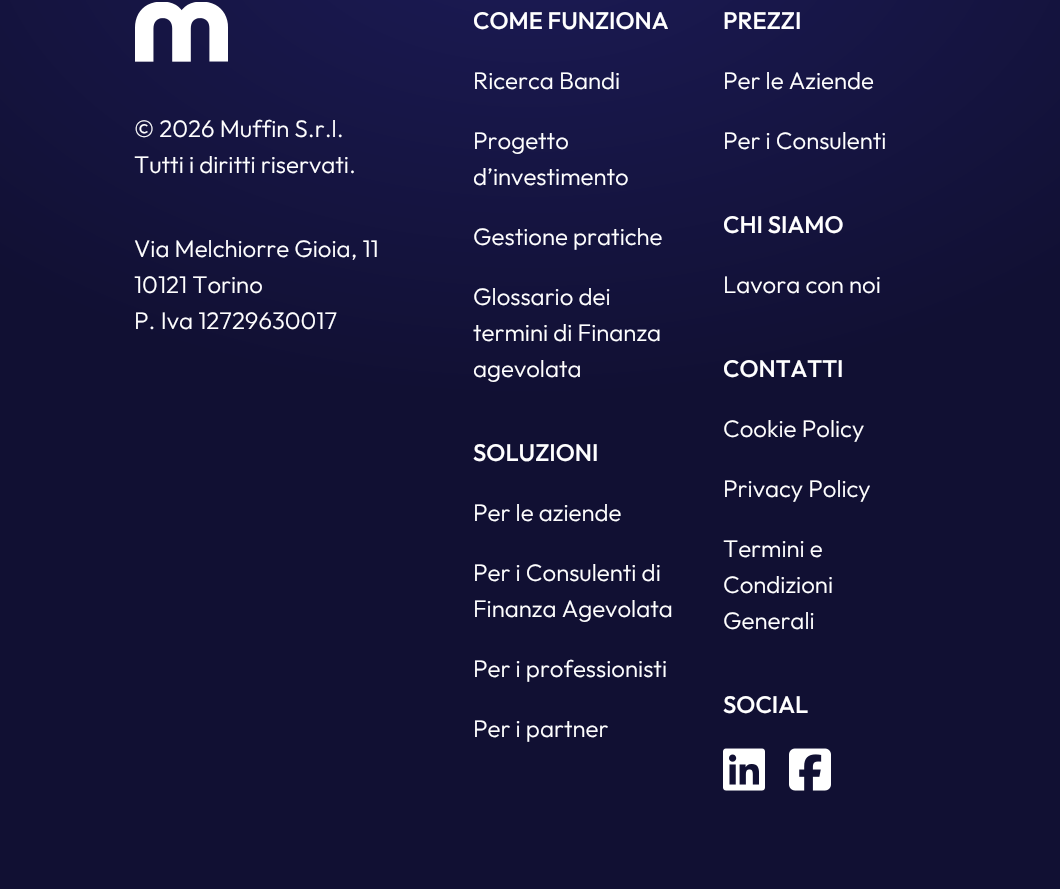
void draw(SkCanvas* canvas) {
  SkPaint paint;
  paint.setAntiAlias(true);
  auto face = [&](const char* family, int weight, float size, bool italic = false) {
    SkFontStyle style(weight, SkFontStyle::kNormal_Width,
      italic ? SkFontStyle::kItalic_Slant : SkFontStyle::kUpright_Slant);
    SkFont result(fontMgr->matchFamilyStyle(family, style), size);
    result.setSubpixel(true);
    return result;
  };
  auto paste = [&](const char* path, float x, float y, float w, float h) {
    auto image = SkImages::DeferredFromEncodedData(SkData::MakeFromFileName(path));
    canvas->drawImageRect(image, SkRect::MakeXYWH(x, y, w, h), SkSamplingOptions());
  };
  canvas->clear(0xffffffff);
  {
    const SkColor colors[] = {0xff1c1b57, 0xff111033};
    const float stops[] = {0, 1};
    SkMatrix m = SkMatrix::Translate(530, -94).preScale(795, 492);
    paint.setShader(SkGradientShader::MakeRadial({0, 0}, 1, colors, stops, 2, SkTileMode::kClamp, 0, &m));
    paint.setAlpha(255);
  }
  canvas->drawRect(SkRect::MakeXYWH(0, 0, 1060, 889), paint);
  paste("img/1.png", 135, 2, 93, 60);
  paste("img/2.png", 723, 748, 42, 43);
  paste("img/3.png", 789, 748, 42, 43);
  auto f0 = face("Outfit", 300, 24);
  paint.setShader(nullptr);
  paint.setColor(0xffffffff);
  {
    const struct { const char* s; float x, y; } items[] = {
      {"© 2026 Muffin S.r.l.", 134, 137},
      {"Tutti i diritti riservati.", 134, 173},
      {"Via Melchiorre Gioia, 11", 134, 257},
      {"10121 Torino", 134, 293},
      {"P. Iva 12729630017", 134, 329},
    };
    for (auto [s, x, y] : items) {
      canvas->drawString(s, x, y, f0, paint);
    }
  }
  auto f1 = face("Outfit", 500, 24);
  canvas->drawString("COME FUNZIONA", 473, 29, f1, paint);
  {
    const struct { const char* s; float x, y; } items[] = {
      {"Ricerca Bandi", 473, 89},
      {"Progetto", 473, 149},
      {"d’investimento", 473, 185},
      {"Gestione pratiche", 473, 245},
      {"Glossario dei", 473, 305},
      {"termini di Finanza", 473, 341},
      {"agevolata", 473, 377},
    };
    for (auto [s, x, y] : items) {
      canvas->drawString(s, x, y, f0, paint);
    }
  }
  canvas->drawString("PREZZI", 723, 29, f1, paint);
  canvas->drawString("Per le Aziende", 723, 89, f0, paint);
  canvas->drawString("Per i Consulenti", 723, 149, f0, paint);
  canvas->drawString("CHI SIAMO", 723, 233, f1, paint);
  canvas->drawString("Lavora con noi", 723, 293, f0, paint);
  canvas->drawString("SOLUZIONI", 473, 461, f1, paint);
  {
    const struct { const char* s; float x, y; } items[] = {
      {"Per le aziende", 473, 521},
      {"Per i Consulenti di", 473, 581},
      {"Finanza Agevolata", 473, 617},
      {"Per i professionisti", 473, 677},
      {"Per i partner", 473, 737},
    };
    for (auto [s, x, y] : items) {
      canvas->drawString(s, x, y, f0, paint);
    }
  }
  canvas->drawString("CONTATTI", 723, 377, f1, paint);
  {
    const struct { const char* s; float x, y; } items[] = {
      {"Cookie Policy", 723, 437},
      {"Privacy Policy", 723, 497},
      {"Termini e", 723, 557},
      {"Condizioni", 723, 593},
      {"Generali", 723, 629},
    };
    for (auto [s, x, y] : items) {
      canvas->drawString(s, x, y, f0, paint);
    }
  }
  canvas->drawString("SOCIAL", 723, 713, f1, paint);
}
